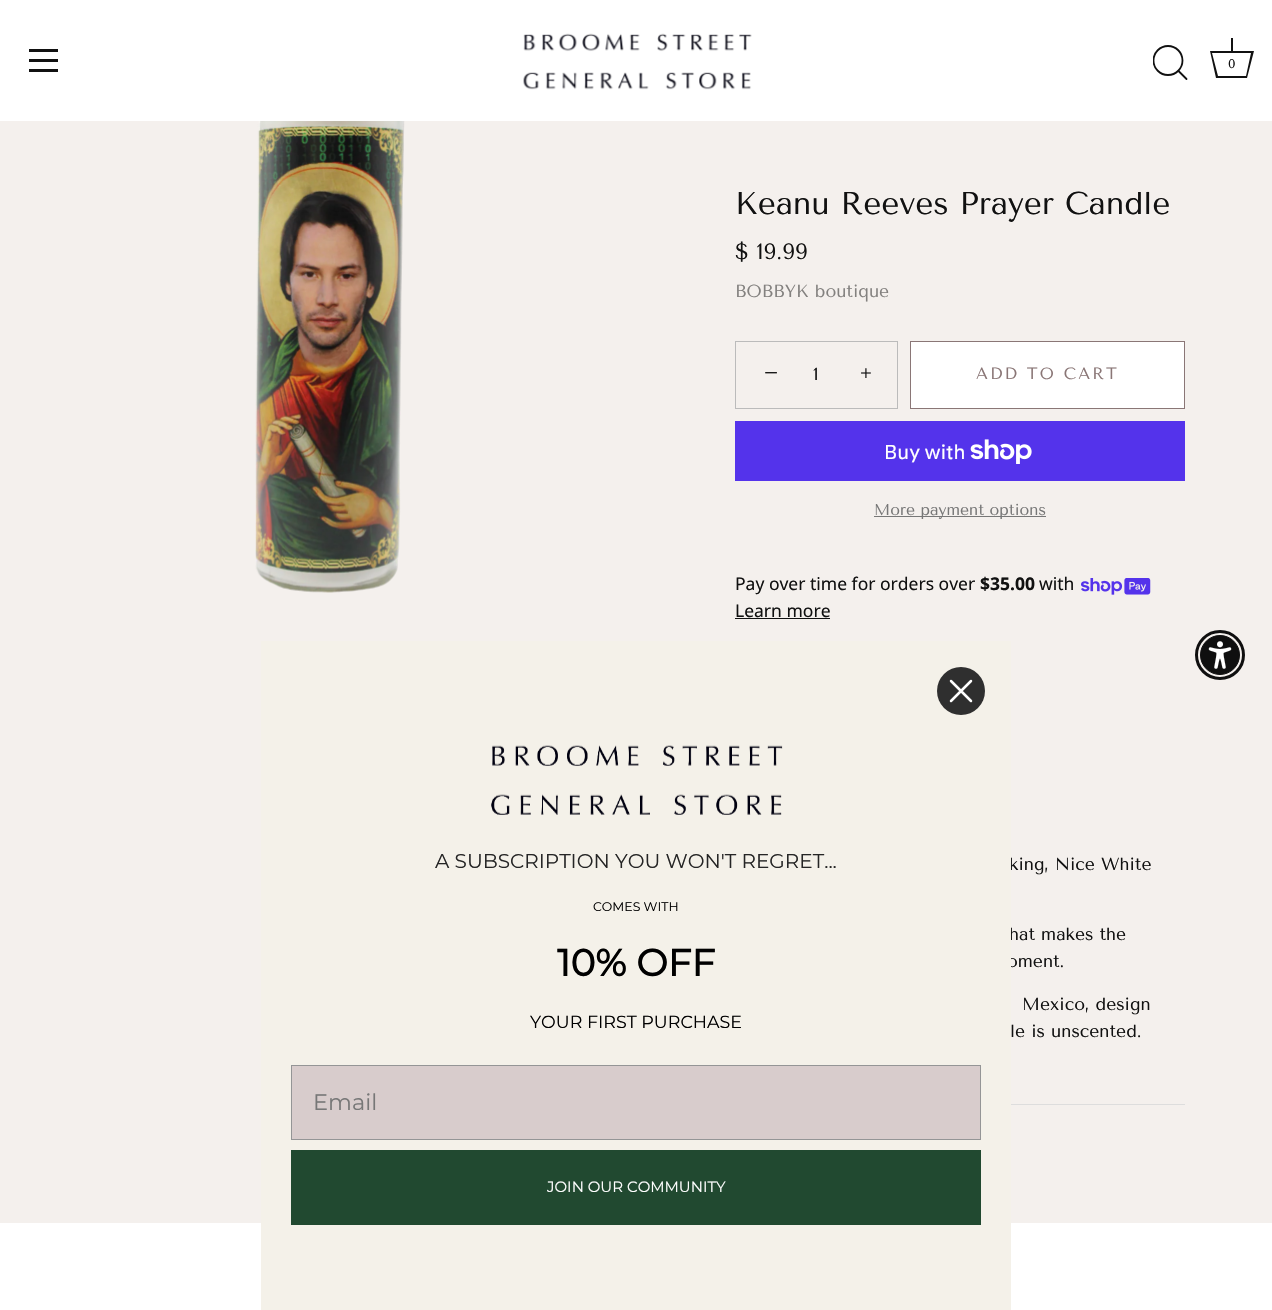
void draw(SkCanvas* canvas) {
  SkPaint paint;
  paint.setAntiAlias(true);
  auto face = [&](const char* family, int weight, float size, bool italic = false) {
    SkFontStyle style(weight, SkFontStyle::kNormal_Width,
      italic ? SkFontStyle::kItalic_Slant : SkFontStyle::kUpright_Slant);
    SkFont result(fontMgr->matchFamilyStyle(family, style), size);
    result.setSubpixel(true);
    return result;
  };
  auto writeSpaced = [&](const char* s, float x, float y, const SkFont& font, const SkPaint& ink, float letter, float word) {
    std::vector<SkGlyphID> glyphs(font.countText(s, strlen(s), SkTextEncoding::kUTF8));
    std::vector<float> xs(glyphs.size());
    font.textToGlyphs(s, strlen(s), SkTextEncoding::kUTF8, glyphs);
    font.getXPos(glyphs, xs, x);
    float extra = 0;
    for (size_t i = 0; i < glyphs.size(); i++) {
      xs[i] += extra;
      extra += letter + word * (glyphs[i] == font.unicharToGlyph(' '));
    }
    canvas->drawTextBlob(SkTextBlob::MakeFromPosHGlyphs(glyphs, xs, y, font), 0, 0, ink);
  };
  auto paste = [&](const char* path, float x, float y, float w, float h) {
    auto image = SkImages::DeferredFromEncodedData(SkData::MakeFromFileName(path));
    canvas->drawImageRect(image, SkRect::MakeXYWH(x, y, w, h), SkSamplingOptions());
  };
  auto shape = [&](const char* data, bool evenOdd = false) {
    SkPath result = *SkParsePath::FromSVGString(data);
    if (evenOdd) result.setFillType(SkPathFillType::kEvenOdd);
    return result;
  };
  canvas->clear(0xfff4f0ed);
  {
    const struct { float x, y, w, h; SkColor color; } items[] = {
      {0, 0, 1272, 121, 0xffffffff},
      {29, 49, 29, 3, 0xff111111},
      {29, 59, 29, 3, 0xff111111},
      {29, 69, 29, 3, 0xff111111},
    };
    for (auto [x, y, w, h, color] : items) {
      paint.setColor(color);
      canvas->drawRect(SkRect::MakeXYWH(x, y, w, h), paint);
    }
  }
  paste("img/1.png", 523, 33, 229, 57);
  canvas->save();
  canvas->clipRect(SkRect::MakeXYWH(1153, 45, 36, 36));
  paint.setStroke(true);
  paint.setStrokeWidth(1.8f);
  canvas->drawCircle(1168, 60.5f, 14.5f, paint);
  canvas->restore();
  paint.setStrokeCap(SkPaint::kRound_Cap);
  paint.setStrokeJoin(SkPaint::kRound_Join);
  canvas->drawPath(shape("M1186.5 79L1178.5 71"), paint);
  paint.setStroke(false);
  canvas->drawRect(SkRect::MakeXYWH(1231, 38, 2, 13), paint);
  canvas->drawPath(shape("M1251 53L1246 76H1218L1212 53H1251M1254 51H1210L1216 78H1247Z"), paint);
  paste("img/2.png", 255, 121, 150, 472);
  paint.setStroke(true);
  paint.setStrokeWidth(1);
  paint.setStrokeCap(SkPaint::kButt_Cap);
  paint.setStrokeJoin(SkPaint::kMiter_Join);
  paint.setColor(0xffbbbbbb);
  canvas->drawRect(SkRect::MakeXYWH(735.5f, 341.5f, 162, 67), paint);
  paint.setStroke(false);
  paint.setColor(0xffffffff);
  canvas->drawRect(SkRect::MakeXYWH(910.5f, 341.5f, 274, 67), paint);
  paint.setStroke(true);
  paint.setColor(0xff8a7676);
  canvas->drawRect(SkRect::MakeXYWH(910.5f, 341.5f, 274, 67), paint);
  paint.setStroke(false);
  paint.setColor(0xff5433eb);
  canvas->drawRect(SkRect::MakeXYWH(735, 421, 450, 60), paint);
  paste("img/3.png", 970, 439, 62, 25);
  paint.setColor(0xff777777);
  canvas->drawRect(SkRect::MakeXYWH(874, 516, 172, 1), paint);
  paste("img/4.png", 1081, 578, 70, 17);
  paint.setColor(0xff111111);
  canvas->drawRect(SkRect::MakeXYWH(735, 618, 95, 1), paint);
  paint.setColor(0xffdddddd);
  canvas->drawRect(SkRect::MakeXYWH(1011, 1104, 174, 1), paint);
  paint.setStroke(true);
  paint.setStrokeWidth(3);
  paint.setColor(0xff0f0f0f);
  canvas->drawCircle(1220, 655, 23.5f, paint);
  paint.setStroke(false);
  canvas->drawCircle(1220, 655, 19.5f, paint);
  paint.setStroke(true);
  paint.setStrokeWidth(1);
  canvas->drawCircle(1220, 655, 19.5f, paint);
  paste("img/5.png", 1208, 641, 24, 28);
  paint.setStroke(false);
  paint.setColor(0xffffffff);
  canvas->drawRect(SkRect::MakeXYWH(0, 1223, 1272, 87), paint);
  auto f0 = face("Tenor Sans", 400, 12.5f);
  paint.setColor(0xff111111);
  canvas->drawString("0", 1228, 68, f0, paint);
  auto f1 = face("Tenor Sans", 400, 31.5f);
  canvas->drawString("Keanu Reeves Prayer Candle", 735, 214, f1, paint);
  auto f2 = face("Tenor Sans", 400, 22);
  canvas->drawString("$ 19.99", 735, 259, f2, paint);
  auto f3 = face("Tenor Sans", 400, 17.5f);
  paint.setColor(0xff83817f);
  canvas->drawString("BOBBYK boutique", 735, 297, f3, paint);
  auto f4 = face("Liberation Serif", 400, 25);
  paint.setColor(0xff111111);
  canvas->drawString("−", 764, 381, f4, paint);
  writeSpaced("1", 813, 380, f3, paint, 1, 0);
  auto f5 = face("Liberation Serif", 400, 21);
  canvas->drawString("+", 860, 380, f5, paint);
  auto f6 = face("Tenor Sans", 400, 16.25f);
  paint.setColor(0xff8a7676);
  writeSpaced("ADD TO CART", 976, 379, f6, paint, 2.1f, 0);
  auto f7 = face("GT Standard", 400, 20);
  paint.setColor(0xffffffff);
  canvas->drawString("Buy with", 884, 459, f7, paint);
  auto f8 = face("Tenor Sans", 400, 15.75f);
  paint.setColor(0xff777777);
  canvas->drawString("More payment options", 874, 515, f8, paint);
  auto f9 = face("Noto Sans", 400, 17.5f);
  paint.setColor(0xff111111);
  canvas->drawString("Pay over time for orders over", 735, 590, f9, paint);
  auto f10 = face("Noto Sans", 700, 17.5f);
  canvas->drawString("$35.00", 980, 590, f10, paint);
  canvas->drawString("with", 1039, 590, f9, paint);
  canvas->drawString("Learn more", 735, 617, f9, paint);
  {
    const struct { const char* s; float x, y; } items[] = {
      {"king, Nice White", 1009, 870},
      {"hat makes the", 1009, 940},
      {"oment.", 1007, 967},
      {"Mexico, design", 1022, 1010},
      {"le is unscented.", 1010, 1037},
    };
    for (auto [s, x, y] : items) {
      canvas->drawString(s, x, y, f3, paint);
    }
  }
  paint.setColor(0xfff4f1e9);
  canvas->drawRect(SkRect::MakeXYWH(261, 641, 750, 669), paint);
  paint.setColor(0xff2f2f2f);
  canvas->drawCircle(961, 691, 24, paint);
  paint.setStroke(true);
  paint.setStrokeWidth(2.5f);
  paint.setStrokeCap(SkPaint::kRound_Cap);
  paint.setStrokeJoin(SkPaint::kRound_Join);
  paint.setColor(0xffffffff);
  canvas->drawPath(shape("M951 681L971 701M951 701L971 681Z"), paint);
  paste("img/6.png", 491, 745, 292, 70);
  auto f11 = face("Montserrat", 400, 20);
  paint.setStroke(false);
  paint.setColor(0xff252525);
  canvas->drawString("A SUBSCRIPTION YOU WON'T REGRET...", 435, 868, f11, paint);
  auto f12 = face("Montserrat", 400, 12.5f);
  paint.setColor(0xff000000);
  canvas->drawString("COMES WITH", 593, 911, f12, paint);
  auto f13 = face("Montserrat", 700, 37.5f);
  canvas->drawString("10% OFF", 557, 976, f13, paint);
  auto f14 = face("Montserrat", 400, 17.5f);
  canvas->drawString("YOUR FIRST PURCHASE", 530, 1028, f14, paint);
  paint.setColor(0xffd8cccc);
  canvas->drawRect(SkRect::MakeXYWH(291.5f, 1065.5f, 689, 74), paint);
  paint.setStroke(true);
  paint.setStrokeWidth(1);
  paint.setStrokeCap(SkPaint::kButt_Cap);
  paint.setStrokeJoin(SkPaint::kMiter_Join);
  paint.setColor(0xff949596);
  canvas->drawRect(SkRect::MakeXYWH(291.5f, 1065.5f, 689, 74), paint);
  auto f15 = face("Montserrat", 400, 22.5f);
  paint.setStroke(false);
  paint.setColor(0xff777777);
  canvas->drawString("Email", 313, 1110, f15, paint);
  paint.setColor(0xff214930);
  canvas->drawRect(SkRect::MakeXYWH(291, 1150, 690, 75), paint);
  auto f16 = face("Montserrat", 400, 15);
  paint.setColor(0xffffffff);
  canvas->drawString("JOIN OUR COMMUNITY", 547, 1192, f16, paint);
}
